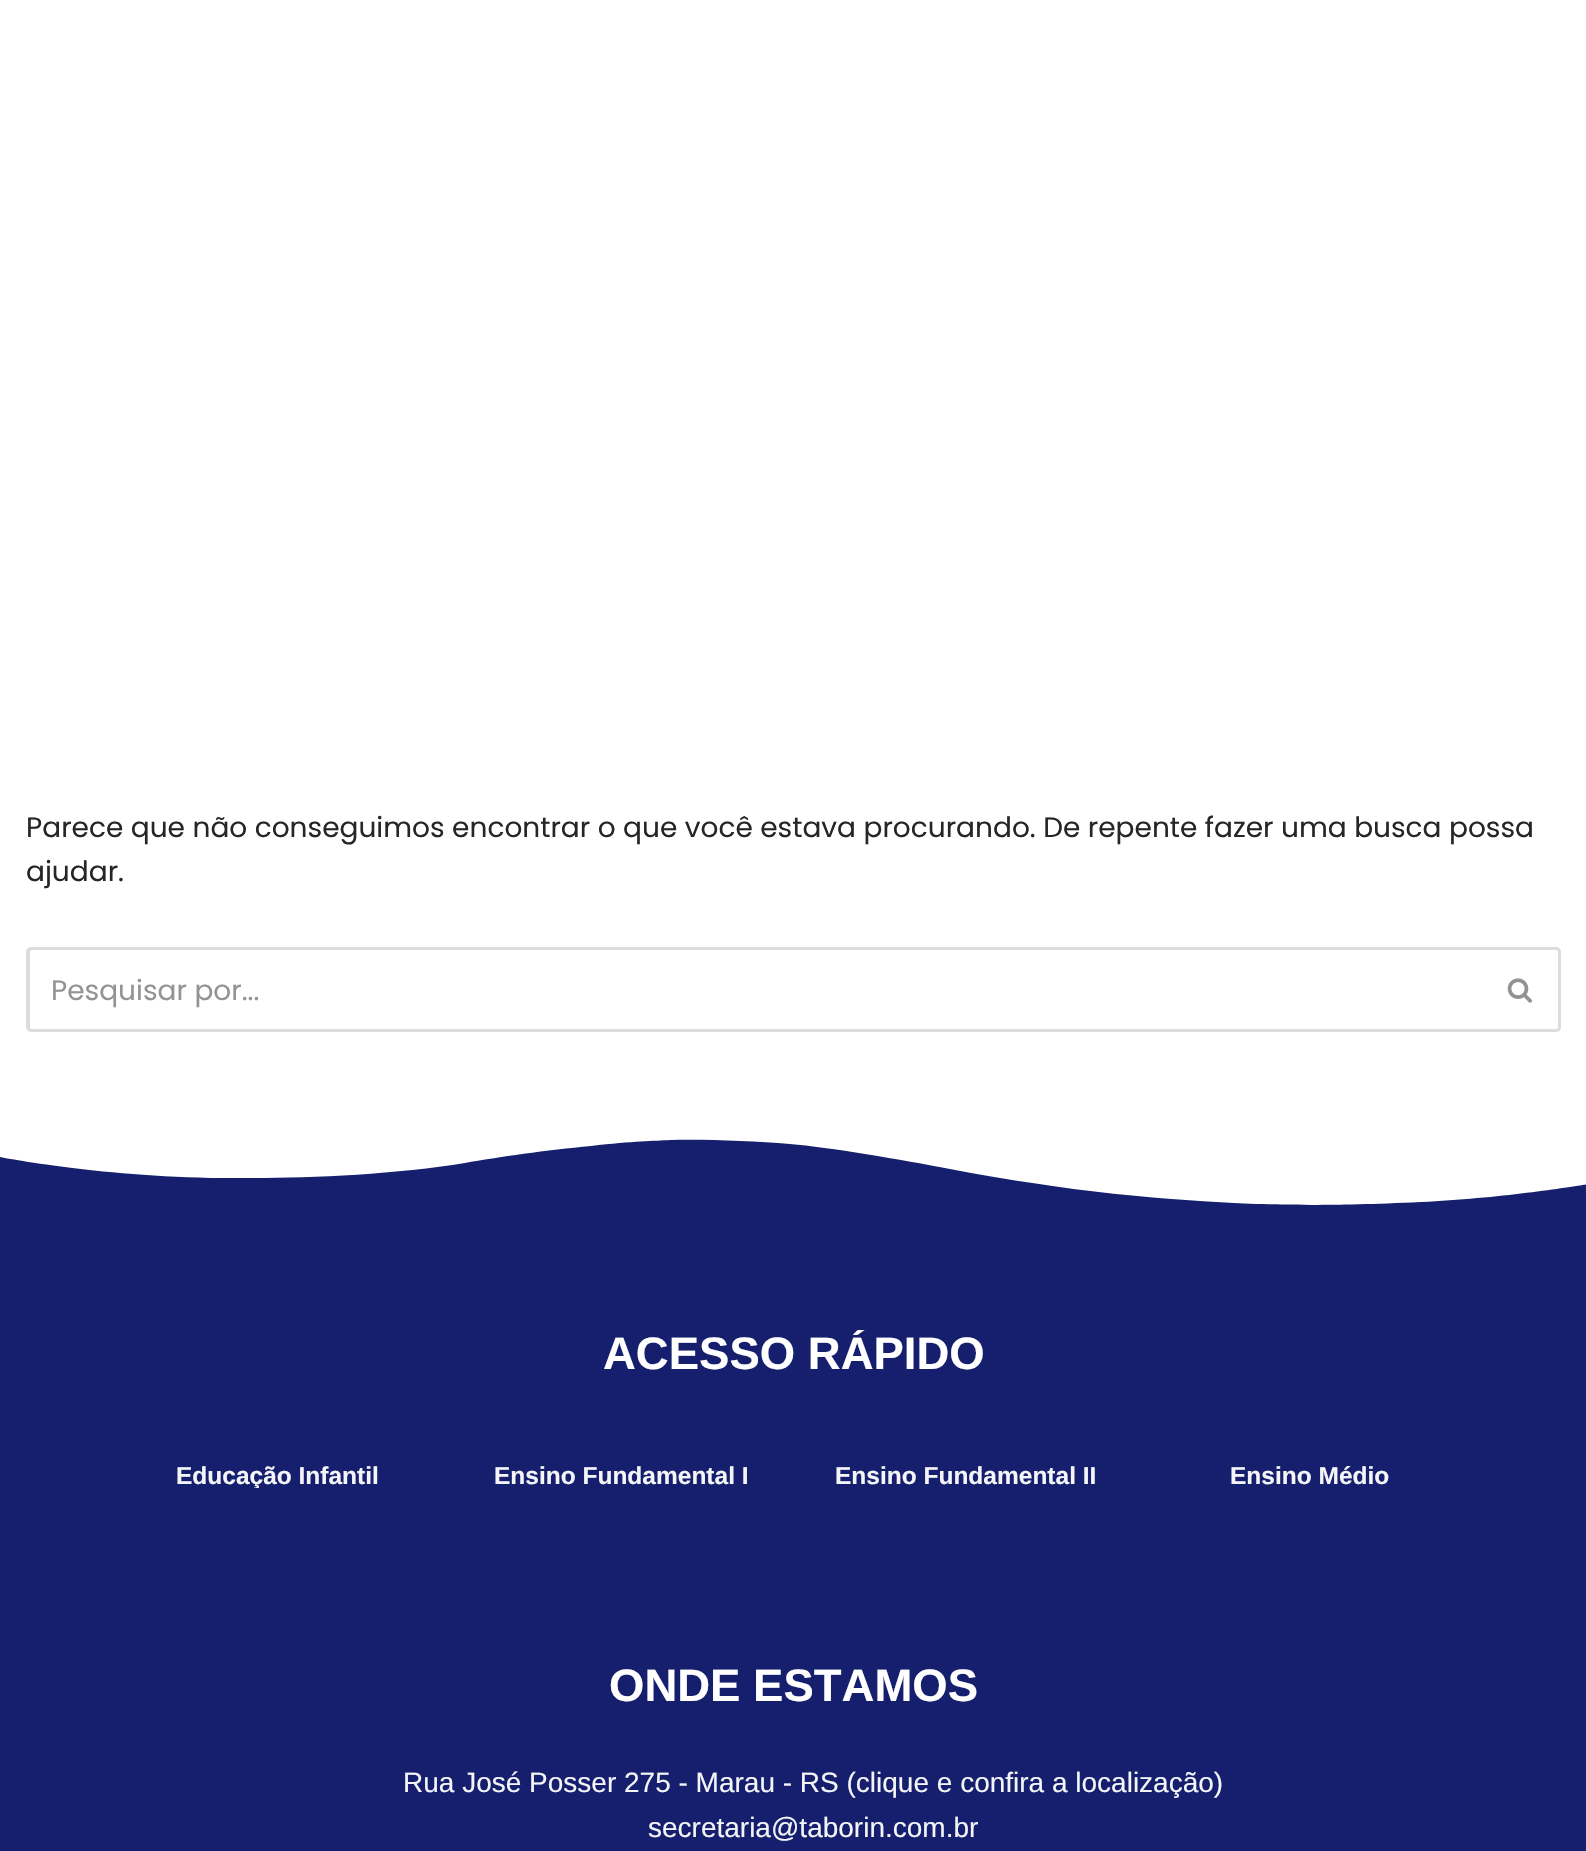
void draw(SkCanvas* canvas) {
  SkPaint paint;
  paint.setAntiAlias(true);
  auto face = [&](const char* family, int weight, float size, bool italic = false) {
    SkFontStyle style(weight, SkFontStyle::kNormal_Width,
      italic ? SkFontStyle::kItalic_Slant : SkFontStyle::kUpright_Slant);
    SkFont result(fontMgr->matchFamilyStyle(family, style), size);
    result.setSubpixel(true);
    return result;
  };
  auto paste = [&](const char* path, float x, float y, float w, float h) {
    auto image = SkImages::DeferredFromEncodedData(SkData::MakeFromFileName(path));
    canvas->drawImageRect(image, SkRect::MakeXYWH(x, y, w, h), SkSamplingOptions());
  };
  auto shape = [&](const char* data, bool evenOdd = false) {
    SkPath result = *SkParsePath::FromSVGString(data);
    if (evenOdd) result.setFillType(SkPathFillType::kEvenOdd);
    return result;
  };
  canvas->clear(0xffffffff);
  paint.setColor(0xffdddddd);
  canvas->drawPath(shape("M32 947H1482V1032H32C29 1032 26 1030 26 1027V952C26 949 29 947 32 947ZM32 950H1482V1029H32C31 1029 30 1028 30 1027V952C30 951 31 950 32 950Z", true), paint);
  canvas->drawPath(shape("M1482 947H1556C1559 947 1561 949 1561 952V1027C1561 1030 1559 1032 1556 1032H1482ZM1482 950H1556C1557 950 1558 951 1558 952V1027C1558 1028 1557 1029 1556 1029H1482Z", true), paint);
  paste("img/1.png", 1507, 978, 25, 25);
  paint.setColor(0xff151f6d);
  canvas->drawRect(SkRect::MakeXYWH(0, 1139, 1586, 712), paint);
  paint.setColor(0xffffffff);
  canvas->drawPath(shape("M670 1140C706 1139 752 1141 790 1144C828 1147 903 1160 950 1169C1071 1192 1163 1200 1256 1204C1294 1205 1334 1206 1421 1202C1508 1198 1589 1184 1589 1184V1136H0V1157C0 1157 114 1180 252 1178C314 1178 399 1174 465 1163C498 1157 547 1150 591 1146C634 1141 654 1141 670 1140Z"), paint);
  auto f0 = face("Poppins", 400, 28);
  paint.setColor(0xff272626);
  canvas->drawString("Parece que não conseguimos encontrar o que você estava procurando. De repente fazer uma busca possa", 26, 837, f0, paint);
  canvas->drawString("ajudar.", 26, 881, f0, paint);
  paint.setColor(0xff939393);
  canvas->drawString("Pesquisar por...", 51, 1000, f0, paint);
  canvas->save();
  canvas->clipRect(SkRect::MakeXYWH(105, 1330, 1377, 46));
  auto f1 = face("Liberation Sans", 700, 45.5f);
  paint.setColor(0xffffffff);
  canvas->drawString("ACESSO RÁPIDO", 603, 1369, f1, paint);
  canvas->restore();
  canvas->save();
  canvas->clipRect(SkRect::MakeXYWH(123, 1463, 309, 25));
  auto f2 = face("Liberation Sans", 700, 24.5f);
  paint.setColor(0xfff4f5f7);
  canvas->drawString("Educação Infantil", 176, 1484, f2, paint);
  canvas->restore();
  {
    const struct { const char* s; float x, y; } items[] = {
      {"Ensino Fundamental I", 494, 1484},
      {"Ensino Fundamental II", 835, 1484},
      {"Ensino Médio", 1230, 1484},
    };
    for (auto [s, x, y] : items) {
      canvas->drawString(s, x, y, f2, paint);
    }
  }
  paint.setColor(0xffffffff);
  canvas->drawString("ONDE ESTAMOS", 609, 1701, f1, paint);
  auto f3 = face("Liberation Sans", 400, 28);
  paint.setColor(0xfff4f5f7);
  canvas->drawString("Rua José Posser 275 - Marau - RS (clique e confira a localização)", 403, 1792, f3, paint);
  canvas->drawString("secretaria@taborin.com.br", 648, 1837, f3, paint);
}
